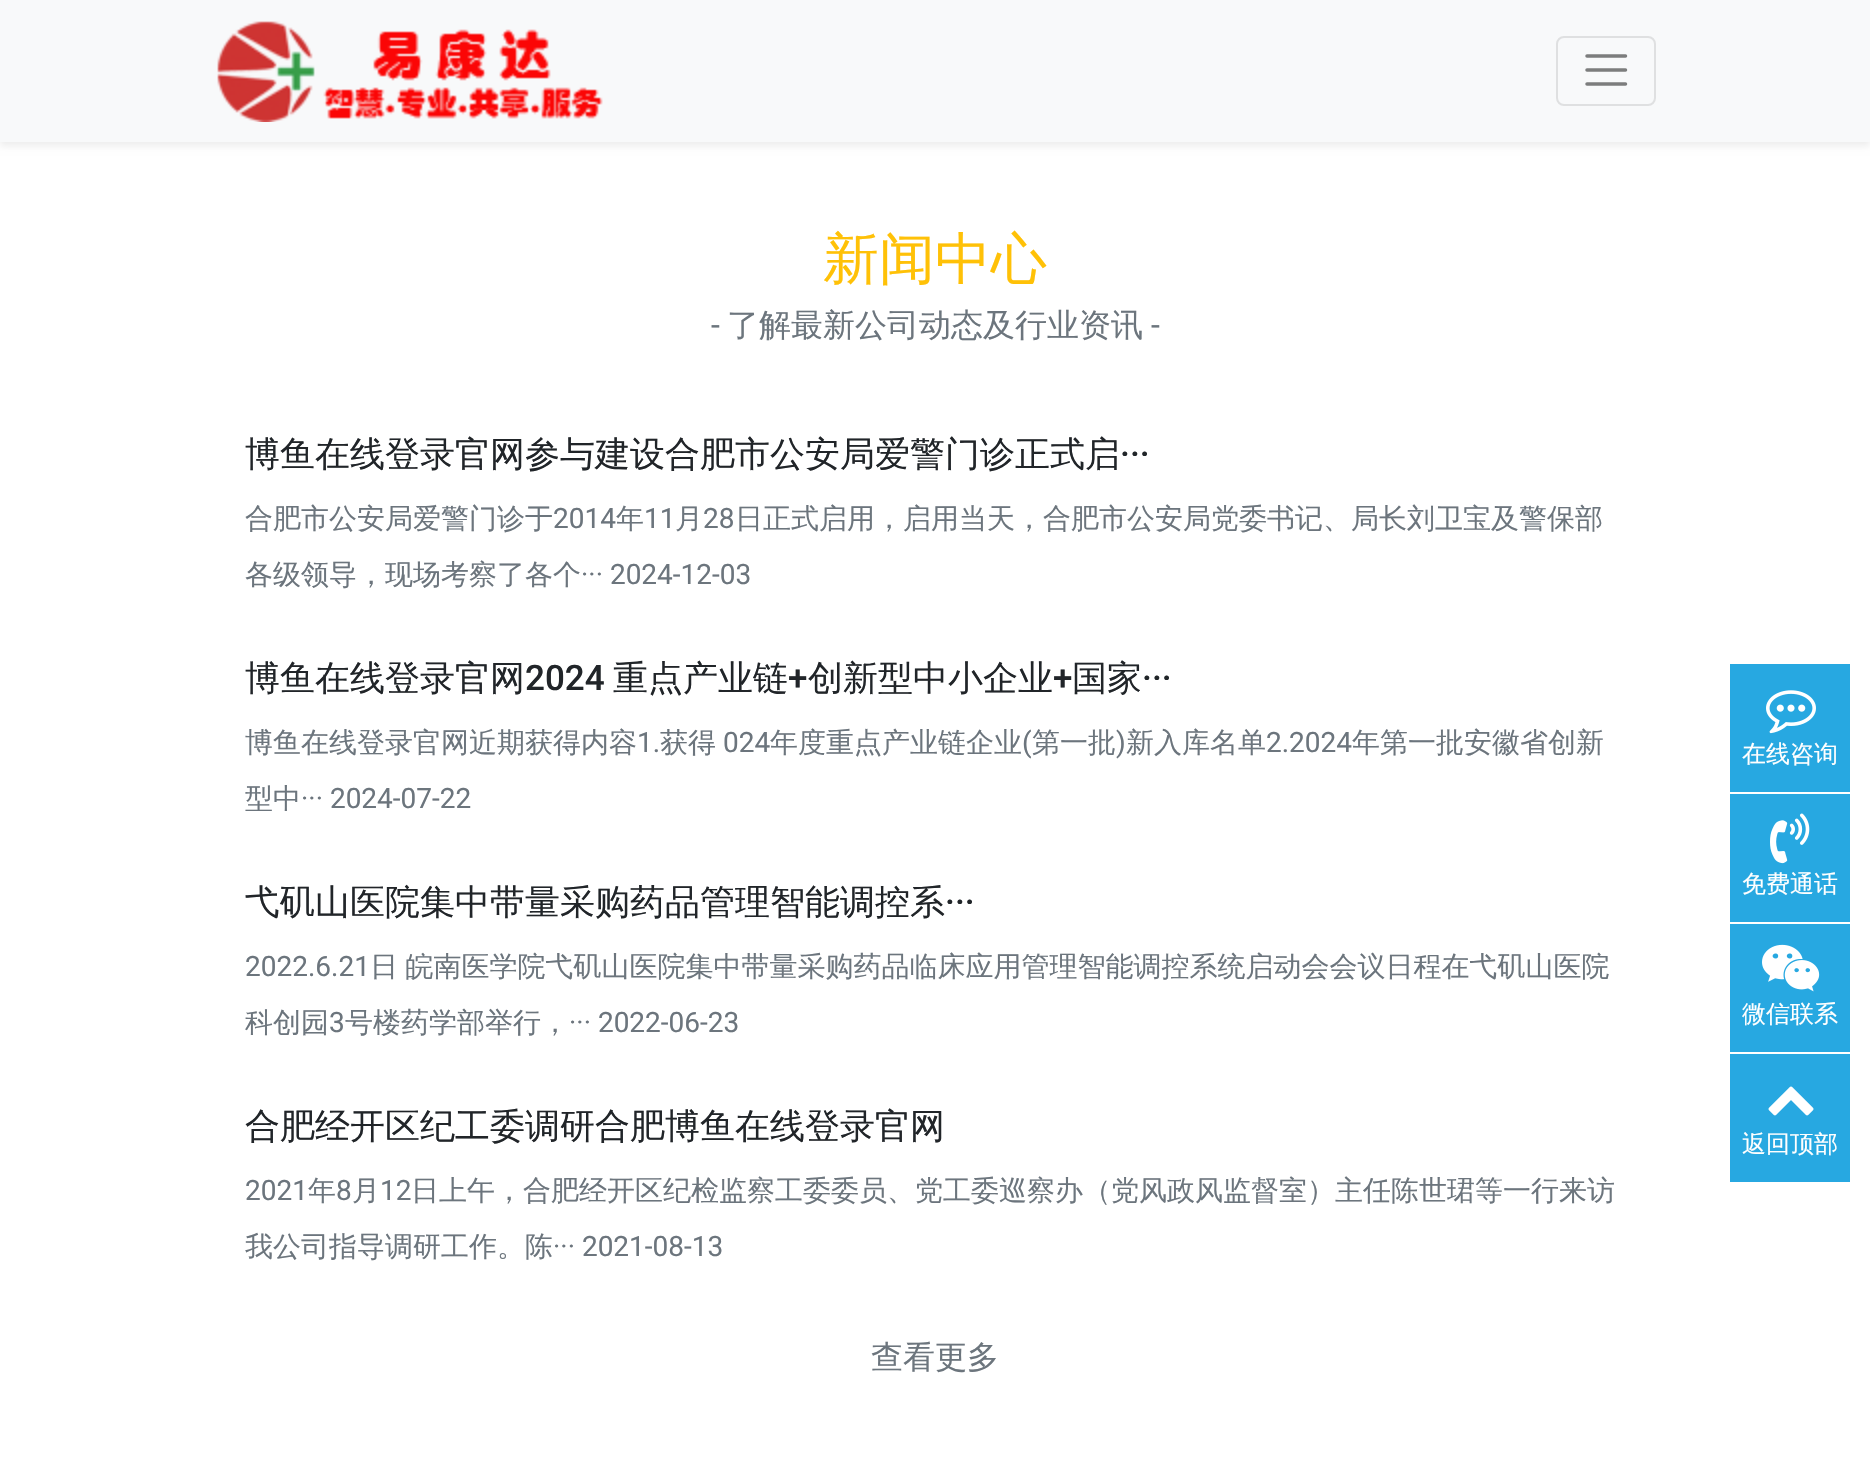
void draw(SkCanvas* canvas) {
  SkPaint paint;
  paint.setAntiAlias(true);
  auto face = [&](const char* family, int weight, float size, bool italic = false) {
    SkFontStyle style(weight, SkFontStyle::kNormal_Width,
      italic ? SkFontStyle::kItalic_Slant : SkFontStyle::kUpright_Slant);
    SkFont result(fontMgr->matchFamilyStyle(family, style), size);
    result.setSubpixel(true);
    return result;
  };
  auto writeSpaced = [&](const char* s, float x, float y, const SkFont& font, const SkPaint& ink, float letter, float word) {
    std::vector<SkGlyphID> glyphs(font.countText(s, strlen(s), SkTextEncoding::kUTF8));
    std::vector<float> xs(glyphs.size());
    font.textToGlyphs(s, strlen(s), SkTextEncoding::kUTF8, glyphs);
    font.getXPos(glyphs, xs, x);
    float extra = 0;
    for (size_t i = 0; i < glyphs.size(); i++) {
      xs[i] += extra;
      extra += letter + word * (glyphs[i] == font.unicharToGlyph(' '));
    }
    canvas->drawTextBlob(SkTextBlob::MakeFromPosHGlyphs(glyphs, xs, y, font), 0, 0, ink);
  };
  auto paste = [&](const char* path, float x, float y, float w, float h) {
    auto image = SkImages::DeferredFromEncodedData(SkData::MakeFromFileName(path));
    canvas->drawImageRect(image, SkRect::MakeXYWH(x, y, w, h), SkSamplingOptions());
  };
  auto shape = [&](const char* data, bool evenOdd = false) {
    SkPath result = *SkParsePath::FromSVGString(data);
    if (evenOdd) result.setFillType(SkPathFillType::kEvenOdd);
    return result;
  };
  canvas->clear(0xffffffff);
  paint.setColor(0x12000000);
  paint.setMaskFilter(SkMaskFilter::MakeBlur(kNormal_SkBlurStyle, 3.5f));
  canvas->drawRect(SkRect::MakeXYWH(0, 4, 1870, 142), paint);
  paint.setMaskFilter(nullptr);
  paint.setColor(0xfff8f9fa);
  canvas->drawRect(SkRect::MakeXYWH(0, 0, 1870, 142), paint);
  paste("img/1.png", 217, 21, 386, 101);
  paint.setStroke(true);
  paint.setStrokeWidth(2);
  paint.setColor(0xffdfe0e1);
  canvas->drawRoundRect(SkRect::MakeXYWH(1557, 37, 98, 68), 7, 7, paint);
  paint.setStrokeWidth(3.5f);
  paint.setStrokeCap(SkPaint::kRound_Cap);
  paint.setColor(0xff7c7d7d);
  canvas->drawPath(shape("M1587 56H1625.5M1587 70H1625.5M1587 84H1625.5"), paint);
  paint.setStroke(false);
  paint.setColor(0xff27a8e1);
  canvas->drawRect(SkRect::MakeXYWH(1730, 664, 120, 128), paint);
  paste("img/2.png", 1766, 690, 50, 44);
  canvas->drawRect(SkRect::MakeXYWH(1730, 794, 120, 128), paint);
  paste("img/3.png", 1770, 813, 40, 51);
  canvas->drawRect(SkRect::MakeXYWH(1730, 924, 120, 128), paint);
  paste("img/4.png", 1762, 944, 58, 48);
  canvas->drawRect(SkRect::MakeXYWH(1730, 1054, 120, 128), paint);
  paste("img/5.png", 1768, 1086, 46, 30);
  auto f0 = face("WenQuanYi Zen Hei", 500, 56);
  paint.setColor(0xffffc107);
  canvas->drawString("新闻中心", 823, 278, f0, paint);
  auto f1 = face("Roboto", 400, 32);
  paint.setColor(0xff6c757d);
  canvas->drawString("-", 711, 336, f1, paint);
  auto f2 = face("WenQuanYi Zen Hei", 500, 32);
  canvas->drawString("了解最新公司动态及行业资讯", 727, 336, f2, paint);
  canvas->drawString("-", 1151, 336, f1, paint);
  auto f3 = face("WenQuanYi Zen Hei", 500, 35);
  paint.setColor(0xff212529);
  canvas->drawString("博鱼在线登录官网参与建设合肥市公安局爱警门诊正式启", 245, 466, f3, paint);
  auto f4 = face("Roboto", 500, 35);
  canvas->drawString("···", 1120, 466, f4, paint);
  auto f5 = face("WenQuanYi Zen Hei", 500, 28);
  paint.setColor(0xff6c757d);
  canvas->drawString("合肥市公安局爱警门诊于", 245, 528, f5, paint);
  auto f6 = face("Roboto", 400, 28);
  canvas->drawString("2014", 553, 528, f6, paint);
  canvas->drawString("年", 616, 528, f5, paint);
  canvas->drawString("11", 644, 528, f6, paint);
  canvas->drawString("月", 675, 528, f5, paint);
  canvas->drawString("28", 703, 528, f6, paint);
  canvas->drawString("日正式启用，启用当天，合肥市公安局党委书记、局长刘卫宝及警保部", 735, 528, f5, paint);
  canvas->drawString("各级领导，现场考察了各个", 245, 584, f5, paint);
  canvas->drawString("··· 2024-12-03", 581, 584, f6, paint);
  paint.setColor(0xff212529);
  canvas->drawString("博鱼在线登录官网", 245, 690, f3, paint);
  canvas->drawString("2024", 525, 690, f4, paint);
  canvas->drawString("重点产业链", 613, 690, f3, paint);
  canvas->drawString("+", 788, 690, f4, paint);
  canvas->drawString("创新型中小企业", 808, 690, f3, paint);
  canvas->drawString("+", 1053, 690, f4, paint);
  canvas->drawString("国家", 1072, 690, f3, paint);
  canvas->drawString("···", 1142, 690, f4, paint);
  paint.setColor(0xff6c757d);
  canvas->drawString("博鱼在线登录官网近期获得内容", 245, 752, f5, paint);
  canvas->drawString("1.", 637, 752, f6, paint);
  canvas->drawString("获得", 660, 752, f5, paint);
  canvas->drawString("024", 723, 752, f6, paint);
  canvas->drawString("年度重点产业链企业", 770, 752, f5, paint);
  canvas->drawString("(", 1022, 752, f6, paint);
  canvas->drawString("第一批", 1032, 752, f5, paint);
  canvas->drawString(")", 1116, 752, f6, paint);
  canvas->drawString("新入库名单", 1126, 752, f5, paint);
  canvas->drawString("2.2024", 1266, 752, f6, paint);
  canvas->drawString("年第一批安徽省创新", 1352, 752, f5, paint);
  canvas->drawString("型中", 245, 808, f5, paint);
  canvas->drawString("··· 2024-07-22", 301, 808, f6, paint);
  paint.setColor(0xff212529);
  canvas->drawString("弋矶山医院集中带量采购药品管理智能调控系", 245, 914, f3, paint);
  canvas->drawString("···", 945, 914, f4, paint);
  paint.setColor(0xff6c757d);
  canvas->drawString("2022.6.21", 245, 976, f6, paint);
  writeSpaced("日 皖南医学院弋矶山医院集中带量采购药品临床应用管理智能调控系统启动会会议日程在弋矶山医院", 370, 976, f5, paint, 0, -1);
  canvas->drawString("科创园", 245, 1032, f5, paint);
  canvas->drawString("3", 329, 1032, f6, paint);
  canvas->drawString("号楼药学部举行，", 345, 1032, f5, paint);
  canvas->drawString("··· 2022-06-23", 569, 1032, f6, paint);
  paint.setColor(0xff212529);
  canvas->drawString("合肥经开区纪工委调研合肥博鱼在线登录官网", 245, 1138, f3, paint);
  paint.setColor(0xff6c757d);
  canvas->drawString("2021", 245, 1200, f6, paint);
  canvas->drawString("年", 308, 1200, f5, paint);
  canvas->drawString("8", 336, 1200, f6, paint);
  canvas->drawString("月", 352, 1200, f5, paint);
  canvas->drawString("12", 380, 1200, f6, paint);
  canvas->drawString("日上午，合肥经开区纪检监察工委委员、党工委巡察办（党风政风监督室）主任陈世珺等一行来访", 411, 1200, f5, paint);
  canvas->drawString("我公司指导调研工作。陈", 245, 1256, f5, paint);
  canvas->drawString("··· 2021-08-13", 553, 1256, f6, paint);
  canvas->drawString("查看更多", 871, 1368, f2, paint);
  auto f7 = face("WenQuanYi Zen Hei", 500, 24);
  paint.setColor(0xffffffff);
  {
    const struct { const char* s; float x, y; } items[] = {
      {"在线咨询", 1742, 762},
      {"免费通话", 1742, 892},
      {"微信联系", 1742, 1022},
      {"返回顶部", 1742, 1152},
    };
    for (auto [s, x, y] : items) {
      canvas->drawString(s, x, y, f7, paint);
    }
  }
}
